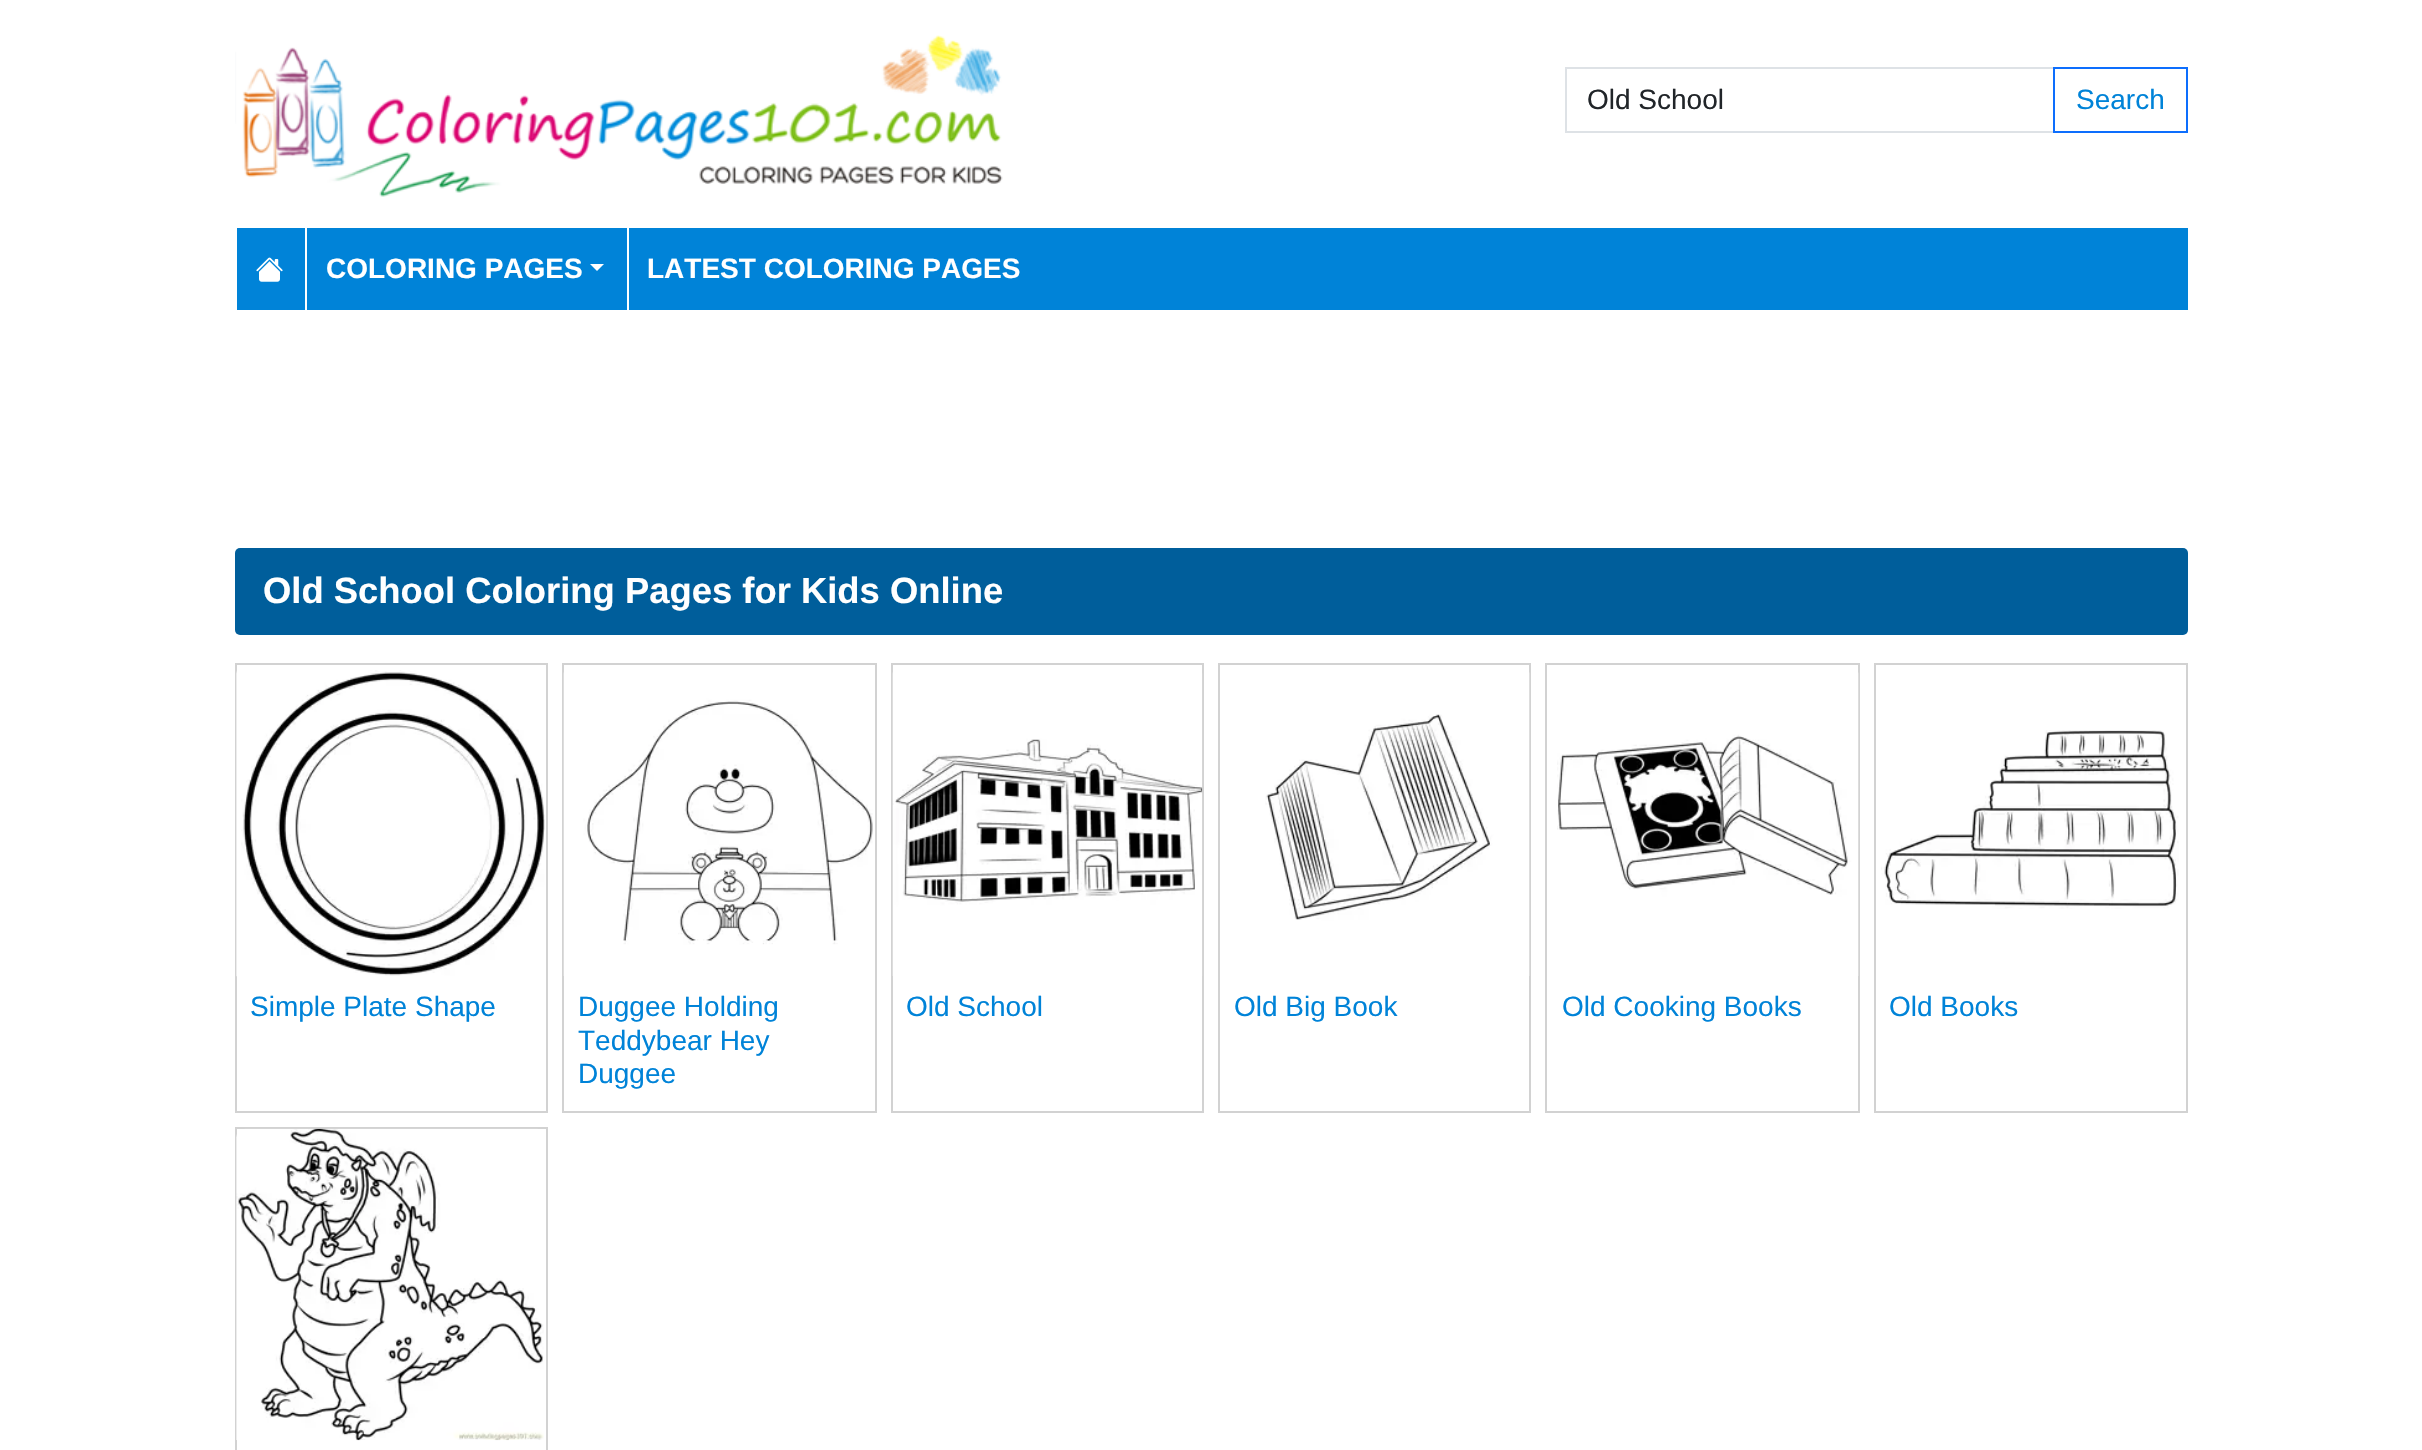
void draw(SkCanvas* canvas) {
  SkPaint paint;
  paint.setAntiAlias(true);
  auto face = [&](const char* family, int weight, float size, bool italic = false) {
    SkFontStyle style(weight, SkFontStyle::kNormal_Width,
      italic ? SkFontStyle::kItalic_Slant : SkFontStyle::kUpright_Slant);
    SkFont result(fontMgr->matchFamilyStyle(family, style), size);
    result.setSubpixel(true);
    return result;
  };
  auto paste = [&](const char* path, float x, float y, float w, float h) {
    auto image = SkImages::DeferredFromEncodedData(SkData::MakeFromFileName(path));
    canvas->drawImageRect(image, SkRect::MakeXYWH(x, y, w, h), SkSamplingOptions());
  };
  auto shape = [&](const char* data, bool evenOdd = false) {
    SkPath result = *SkParsePath::FromSVGString(data);
    if (evenOdd) result.setFillType(SkPathFillType::kEvenOdd);
    return result;
  };
  canvas->clear(0xffffffff);
  paste("img/1.png", 235, 35, 768, 162);
  paint.setStroke(true);
  paint.setStrokeWidth(2);
  paint.setColor(0xffdee2e6);
  canvas->drawRect(SkRect::MakeXYWH(1566, 68, 488, 64), paint);
  paint.setColor(0xff0d6efd);
  canvas->drawRect(SkRect::MakeXYWH(2054, 68, 133, 64), paint);
  paint.setStroke(false);
  paint.setColor(0xff0083d8);
  canvas->drawRect(SkRect::MakeXYWH(237, 228, 1951, 82), paint);
  paste("img/2.png", 256, 257, 27, 25);
  paint.setColor(0xffffffff);
  canvas->drawRect(SkRect::MakeXYWH(305, 228, 2, 82), paint);
  canvas->drawPath(shape("M590 264H604L597 271Z"), paint);
  canvas->drawRect(SkRect::MakeXYWH(627, 228, 2, 82), paint);
  paint.setColor(0xff005e9b);
  canvas->drawRoundRect(SkRect::MakeXYWH(235, 548, 1953, 87), 5, 5, paint);
  paint.setStroke(true);
  paint.setColor(0xffd2d2d2);
  canvas->drawRect(SkRect::MakeXYWH(236, 664, 311, 448), paint);
  paste("img/3.png", 236, 670, 309, 307);
  canvas->drawRect(SkRect::MakeXYWH(563, 664, 313, 448), paint);
  paste("img/4.png", 563, 672, 310, 304);
  canvas->drawRect(SkRect::MakeXYWH(892, 664, 311, 448), paint);
  paste("img/5.png", 892, 672, 311, 304);
  canvas->drawRect(SkRect::MakeXYWH(1219, 664, 311, 448), paint);
  paste("img/6.png", 1265, 672, 265, 304);
  canvas->drawRect(SkRect::MakeXYWH(1546, 664, 313, 448), paint);
  paste("img/7.png", 1557, 672, 302, 304);
  canvas->drawRect(SkRect::MakeXYWH(1875, 664, 312, 448), paint);
  paste("img/8.png", 1881, 730, 298, 179);
  canvas->drawRect(SkRect::MakeXYWH(236, 1128, 311, 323), paint);
  paste("img/9.png", 236, 1128, 308, 313);
  auto f0 = face("Liberation Sans", 400, 28);
  paint.setStroke(false);
  paint.setColor(0xff212529);
  canvas->drawString("Old School", 1587, 109, f0, paint);
  paint.setColor(0xff0083d8);
  canvas->drawString("Search", 2076, 109, f0, paint);
  auto f1 = face("Liberation Sans", 700, 28);
  paint.setColor(0xffffffff);
  canvas->drawString("COLORING PAGES", 326, 278, f1, paint);
  canvas->drawString("LATEST COLORING PAGES", 647, 278, f1, paint);
  auto f2 = face("Liberation Sans", 700, 36.4f);
  canvas->drawString("Old School Coloring Pages for Kids Online", 263, 603, f2, paint);
  paint.setColor(0xff0083d8);
  {
    const struct { const char* s; float x, y; } items[] = {
      {"Simple Plate Shape", 250, 1016},
      {"Duggee Holding", 578, 1016},
      {"Teddybear Hey", 578, 1050},
      {"Duggee", 578, 1083},
      {"Old School", 906, 1016},
      {"Old Big Book", 1234, 1016},
      {"Old Cooking Books", 1562, 1016},
      {"Old Books", 1889, 1016},
    };
    for (auto [s, x, y] : items) {
      canvas->drawString(s, x, y, f0, paint);
    }
  }
}
